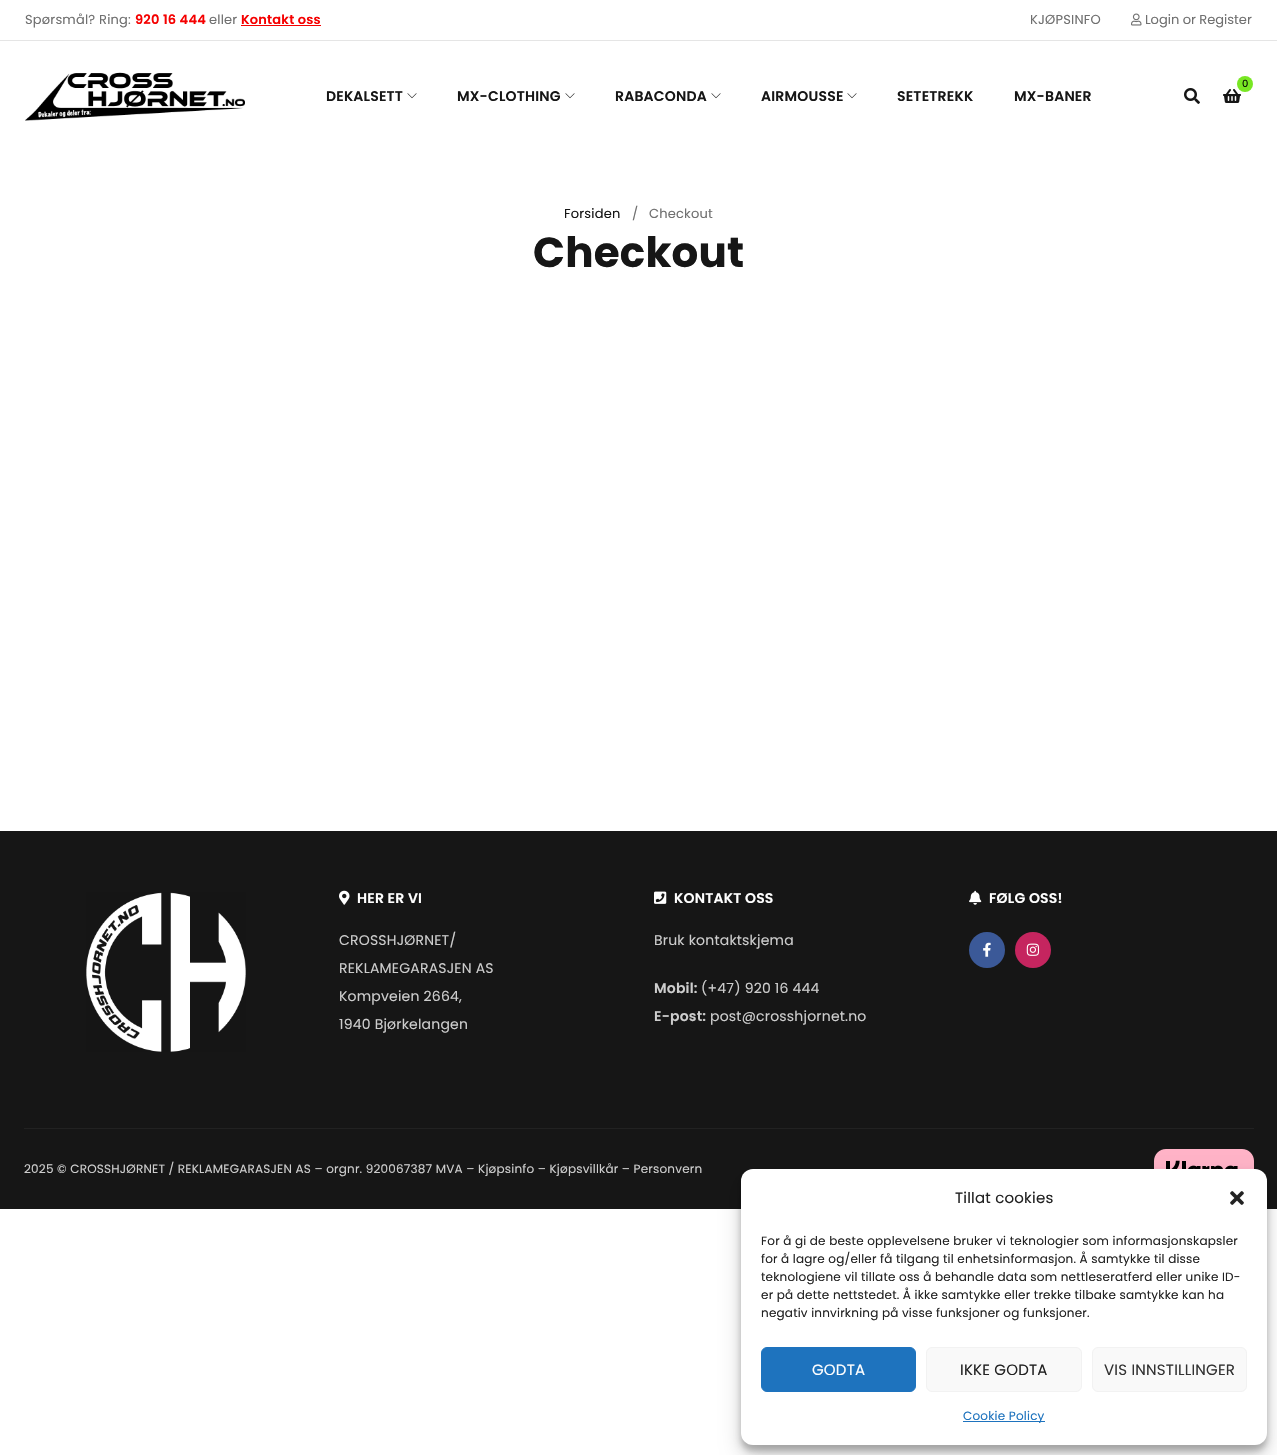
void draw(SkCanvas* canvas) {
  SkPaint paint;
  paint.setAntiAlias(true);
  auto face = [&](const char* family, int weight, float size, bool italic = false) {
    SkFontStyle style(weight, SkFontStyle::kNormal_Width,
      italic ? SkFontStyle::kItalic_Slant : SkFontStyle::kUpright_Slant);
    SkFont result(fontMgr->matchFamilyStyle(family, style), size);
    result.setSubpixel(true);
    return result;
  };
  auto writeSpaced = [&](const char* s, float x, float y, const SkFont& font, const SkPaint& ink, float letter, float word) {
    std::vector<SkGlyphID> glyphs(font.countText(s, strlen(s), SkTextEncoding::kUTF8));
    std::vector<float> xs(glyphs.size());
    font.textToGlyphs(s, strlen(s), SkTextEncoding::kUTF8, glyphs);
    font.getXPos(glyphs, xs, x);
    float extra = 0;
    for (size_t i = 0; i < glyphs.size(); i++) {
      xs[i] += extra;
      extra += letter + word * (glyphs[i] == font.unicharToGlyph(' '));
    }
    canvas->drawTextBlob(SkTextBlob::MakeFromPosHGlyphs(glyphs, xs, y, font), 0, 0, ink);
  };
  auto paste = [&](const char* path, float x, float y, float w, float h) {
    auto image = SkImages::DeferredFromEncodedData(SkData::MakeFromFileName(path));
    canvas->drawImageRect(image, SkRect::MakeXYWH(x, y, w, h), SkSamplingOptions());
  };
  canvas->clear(0xffffffff);
  paint.setColor(0xffe5e5e5);
  canvas->drawRect(SkRect::MakeXYWH(0, 40, 1277, 1), paint);
  paint.setColor(0xfff50000);
  canvas->drawRect(SkRect::MakeXYWH(241, 25, 80, 1), paint);
  paste("img/1.png", 1131, 13, 11, 13);
  paste("img/2.png", 25, 72, 220, 49);
  paste("img/3.png", 1223, 89, 18, 14);
  paint.setColor(0xff78e723);
  canvas->drawCircle(1245, 84, 8, paint);
  paste("img/4.png", 1184, 88, 16, 16);
  paste("img/5.png", 407, 93, 10, 6);
  paste("img/5.png", 565, 93, 10, 6);
  paste("img/5.png", 711, 93, 10, 6);
  paste("img/5.png", 847, 93, 10, 6);
  paint.setColor(0xff161616);
  canvas->drawRect(SkRect::MakeXYWH(0, 831, 1277, 378), paint);
  paste("img/6.png", 86, 892, 160, 160);
  paste("img/7.png", 339, 890, 11, 15);
  paste("img/8.png", 654, 891, 13, 13);
  paste("img/9.png", 969, 890, 13, 15);
  paint.setColor(0xff3b5998);
  canvas->drawCircle(987, 950, 18, paint);
  paste("img/10.png", 983, 942, 8, 15);
  paint.setColor(0xffc5255f);
  canvas->drawCircle(1033, 950, 18, paint);
  paste("img/11.png", 1026, 943, 14, 13);
  paint.setColor(0xff222222);
  canvas->drawRect(SkRect::MakeXYWH(24, 1128, 1230, 1), paint);
  paste("img/12.png", 1154, 1149, 100, 20);
  paint.setColor(0x3b000000);
  paint.setMaskFilter(SkMaskFilter::MakeBlur(kNormal_SkBlurStyle, 3));
  canvas->drawRoundRect(SkRect::MakeXYWH(741, 1175, 526, 276), 12, 12, paint);
  paint.setMaskFilter(nullptr);
  paint.setColor(0x30000000);
  paint.setMaskFilter(SkMaskFilter::MakeBlur(kNormal_SkBlurStyle, 10));
  canvas->drawRoundRect(SkRect::MakeXYWH(741, 1179, 526, 276), 12, 12, paint);
  paint.setMaskFilter(nullptr);
  paint.setColor(0xffffffff);
  canvas->drawRoundRect(SkRect::MakeXYWH(741, 1169, 526, 276), 12, 12, paint);
  paste("img/13.png", 1230, 1191, 14, 14);
  paint.setColor(0xff1e73be);
  canvas->drawRoundRect(SkRect::MakeXYWH(761.5f, 1347.5f, 154, 44), 5.5f, 5.5f, paint);
  paint.setStroke(true);
  paint.setStrokeWidth(1);
  canvas->drawRoundRect(SkRect::MakeXYWH(761.5f, 1347.5f, 154, 44), 5.5f, 5.5f, paint);
  paint.setStroke(false);
  paint.setColor(0xfff9f9f9);
  canvas->drawRoundRect(SkRect::MakeXYWH(926.5f, 1347.5f, 155, 44), 5.5f, 5.5f, paint);
  paint.setStroke(true);
  paint.setColor(0xfff2f2f2);
  canvas->drawRoundRect(SkRect::MakeXYWH(926.5f, 1347.5f, 155, 44), 5.5f, 5.5f, paint);
  paint.setStroke(false);
  paint.setColor(0xfff9f9f9);
  canvas->drawRoundRect(SkRect::MakeXYWH(1092.5f, 1347.5f, 154, 44), 5.5f, 5.5f, paint);
  paint.setStroke(true);
  paint.setColor(0xfff2f2f2);
  canvas->drawRoundRect(SkRect::MakeXYWH(1092.5f, 1347.5f, 154, 44), 5.5f, 5.5f, paint);
  paint.setStroke(false);
  paint.setColor(0xff1e73be);
  canvas->drawRect(SkRect::MakeXYWH(963, 1421, 82, 1), paint);
  auto f0 = face("Poppins", 400, 13);
  paint.setColor(0xff707070);
  writeSpaced("Spørsmål? Ring:", 25, 24, f0, paint, 0.2f, 0);
  auto f1 = face("Poppins", 600, 13);
  paint.setColor(0xfff50000);
  writeSpaced("920 16 444", 135, 24, f1, paint, 0.2f, 0);
  paint.setColor(0xff707070);
  writeSpaced("eller", 209, 24, f0, paint, 0.2f, 0);
  paint.setColor(0xfff50000);
  writeSpaced("Kontakt oss", 241, 24, f1, paint, 0.2f, 0);
  paint.setColor(0xff707070);
  writeSpaced("KJØPSINFO", 1030, 24, f0, paint, 0.2f, 0);
  canvas->drawString("Login or Register", 1145, 24, f0, paint);
  auto f2 = face("Poppins", 400, 10);
  paint.setColor(0xff000000);
  canvas->drawString("0", 1242, 87, f2, paint);
  auto f3 = face("Poppins", 600, 14);
  paint.setColor(0xff161616);
  {
    const struct { const char* s; float x, y; } items[] = {
      {"DEKALSETT", 326, 101},
      {"MX-CLOTHING", 457, 101},
      {"RABACONDA", 615, 101},
      {"AIRMOUSSE", 761, 101},
      {"SETETREKK", 897, 101},
      {"MX-BANER", 1014, 101},
    };
    for (auto [s, x, y] : items) {
      writeSpaced(s, x, y, f3, paint, 0.2f, 0);
    }
  }
  writeSpaced("Forsiden", 564, 218, f0, paint, 0.2f, 0);
  paint.setColor(0xff707070);
  writeSpaced("/", 632, 218, f0, paint, 0.2f, 0);
  writeSpaced("Checkout", 649, 218, f0, paint, 0.2f, 0);
  auto f4 = face("Poppins", 700, 42);
  paint.setColor(0xff161616);
  writeSpaced("Checkout", 533, 267, f4, paint, 0.2f, 0);
  paint.setColor(0xffffffff);
  writeSpaced("HER ER VI", 357, 903, f3, paint, 0.2f, 0);
  auto f5 = face("Poppins", 400, 14);
  paint.setColor(0xffcdcdcd);
  {
    const struct { const char* s; float x, y; } items[] = {
      {"CROSSHJØRNET/", 339, 945},
      {"REKLAMEGARASJEN AS", 339, 973},
      {"Kompveien 2664,", 339, 1001},
      {"1940 Bjørkelangen", 339, 1029},
    };
    for (auto [s, x, y] : items) {
      writeSpaced(s, x, y, f5, paint, 0.2f, 0);
    }
  }
  paint.setColor(0xffffffff);
  writeSpaced("KONTAKT OSS", 674, 903, f3, paint, 0.2f, 0);
  paint.setColor(0xffcdcdcd);
  writeSpaced("Bruk kontaktskjema", 654, 945, f5, paint, 0.2f, 0);
  writeSpaced("Mobil:", 654, 993, f3, paint, 0.2f, 0);
  writeSpaced("(+47) 920 16 444", 701, 993, f5, paint, 0.2f, 0);
  writeSpaced("E-post:", 654, 1021, f3, paint, 0.2f, 0);
  writeSpaced("post@crosshjornet.no", 710, 1021, f5, paint, 0.2f, 0);
  paint.setColor(0xffffffff);
  writeSpaced("FØLG OSS!", 989, 903, f3, paint, 0.2f, 0);
  auto f6 = face("Poppins", 400, 12);
  paint.setColor(0xffcdcdcd);
  writeSpaced("2025 © CROSSHJØRNET / REKLAMEGARASJEN AS – orgnr. 920067387 MVA – Kjøpsinfo – Kjøpsvillkår – Personvern", 24, 1173, f6, paint, 0.2f, 0);
  auto f7 = face("Poppins", 400, 15);
  paint.setColor(0xff222222);
  writeSpaced("Tillat cookies", 955, 1203, f7, paint, 0.2f, 0);
  {
    const struct { const char* s; float x, y; } items[] = {
      {"For å gi de beste opplevelsene bruker vi teknologier som informasjonskapsler", 761, 1245},
      {"for å lagre og/eller få tilgang til enhetsinformasjon. Å samtykke til disse", 761, 1263},
      {"teknologiene vil tillate oss å behandle data som nettleseratferd eller unike ID-", 761, 1281},
      {"er på dette nettstedet. Å ikke samtykke eller trekke tilbake samtykke kan ha", 761, 1299},
      {"negativ innvirkning på visse funksjoner og funksjoner.", 761, 1317},
    };
    for (auto [s, x, y] : items) {
      writeSpaced(s, x, y, f6, paint, 0.2f, 0);
    }
  }
  paint.setColor(0xffffffff);
  writeSpaced("GODTA", 812, 1375, f7, paint, 0.2f, 0);
  paint.setColor(0xff222222);
  writeSpaced("IKKE GODTA", 960, 1375, f7, paint, 0.2f, 0);
  paint.setColor(0xff333333);
  writeSpaced("VIS INNSTILLINGER", 1104, 1375, f7, paint, 0.2f, 0);
  paint.setColor(0xff1e73be);
  writeSpaced("Cookie Policy", 963, 1420, f6, paint, 0.2f, 0);
}
